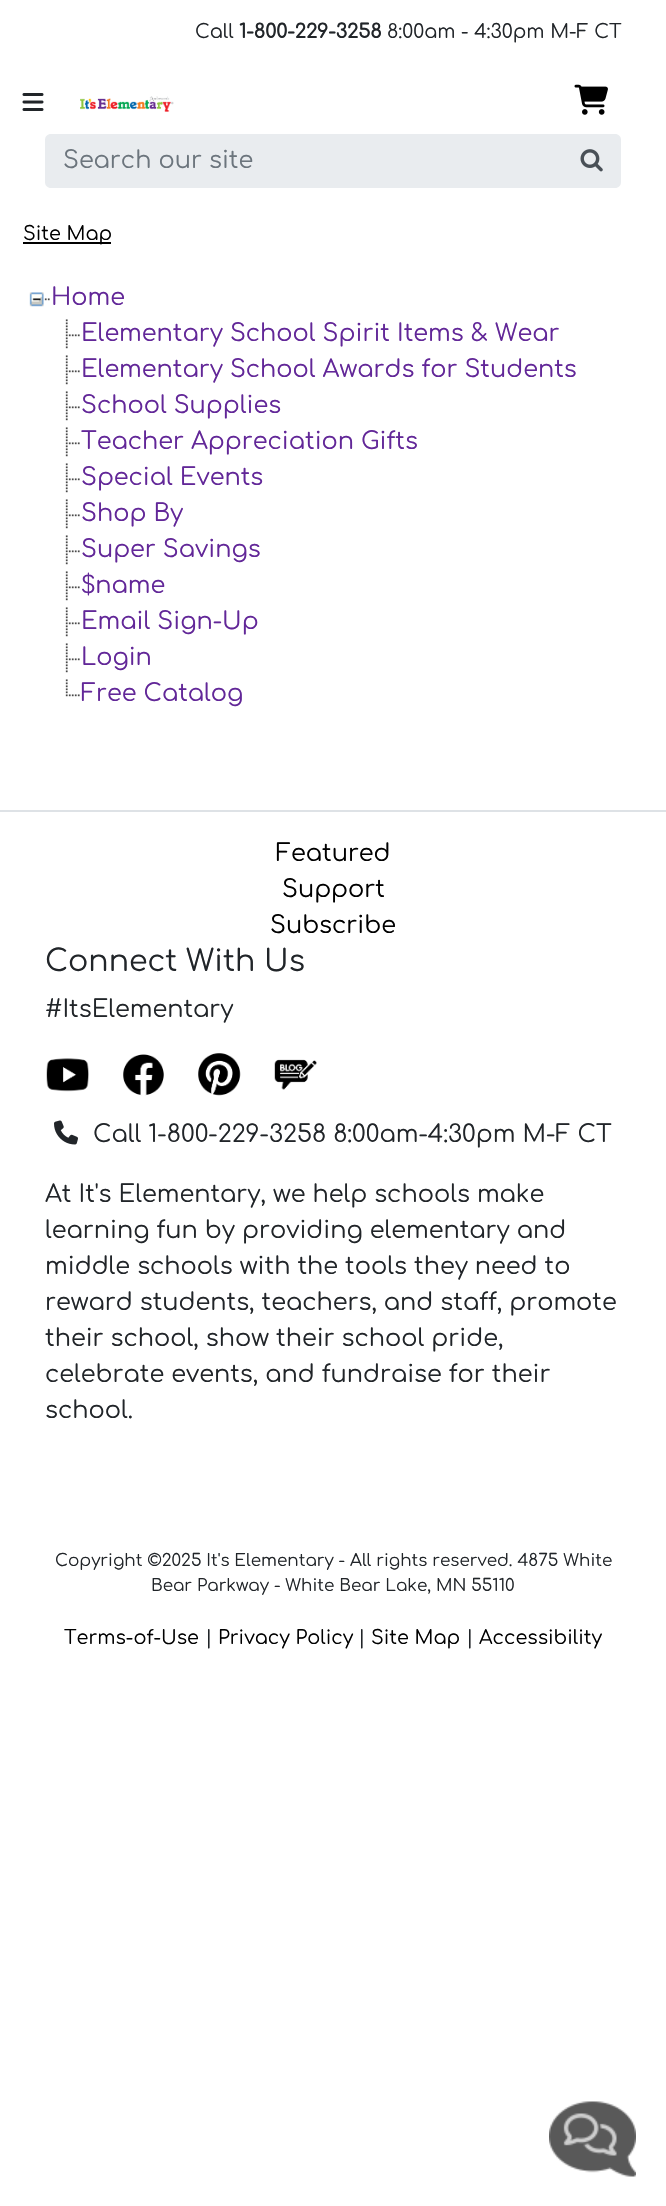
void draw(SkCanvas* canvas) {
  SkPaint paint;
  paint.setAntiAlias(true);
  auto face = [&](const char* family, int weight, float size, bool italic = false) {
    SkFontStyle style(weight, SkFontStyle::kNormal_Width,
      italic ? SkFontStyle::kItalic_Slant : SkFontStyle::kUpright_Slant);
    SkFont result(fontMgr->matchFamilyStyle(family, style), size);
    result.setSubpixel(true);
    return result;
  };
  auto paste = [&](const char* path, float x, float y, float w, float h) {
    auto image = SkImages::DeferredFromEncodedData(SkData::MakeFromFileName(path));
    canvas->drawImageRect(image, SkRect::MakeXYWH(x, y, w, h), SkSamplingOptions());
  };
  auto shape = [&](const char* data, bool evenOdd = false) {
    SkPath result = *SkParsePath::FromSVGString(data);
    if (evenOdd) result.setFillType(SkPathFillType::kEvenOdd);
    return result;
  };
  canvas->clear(0xffffffff);
  paste("img/1.png", 22, 93, 22, 18);
  paste("img/2.png", 80, 96, 94, 16);
  paste("img/3.png", 574, 84, 34, 31);
  paint.setColor(0xffe9ecef);
  canvas->drawPath(shape("M563 134H615C618.5 134 621 136.5 621 140V182C621 185.5 618.5 188 615 188H563Z"), paint);
  canvas->drawPath(shape("M51 134H564V188H51C47.5 188 45 185.5 45 182V140C45 136.5 47.5 134 51 134Z"), paint);
  paste("img/4.png", 580, 149, 23, 23);
  paint.setColor(0xff000000);
  canvas->drawRect(SkRect::MakeXYWH(23, 242, 88, 2), paint);
  paste("img/5.png", 29, 292, 21, 15);
  paste("img/6.png", 65, 319, 15, 30);
  paste("img/6.png", 65, 355, 15, 30);
  paste("img/6.png", 65, 391, 15, 30);
  paste("img/6.png", 65, 427, 15, 30);
  paste("img/6.png", 65, 463, 15, 30);
  paste("img/6.png", 65, 499, 15, 30);
  paste("img/6.png", 65, 535, 15, 30);
  paste("img/6.png", 65, 571, 15, 30);
  paste("img/6.png", 65, 607, 15, 30);
  paste("img/6.png", 65, 643, 15, 30);
  paste("img/7.png", 65, 679, 15, 18);
  paint.setColor(0xffdee2e6);
  canvas->drawRect(SkRect::MakeXYWH(0, 810, 666, 2), paint);
  paste("img/8.png", 46, 1058, 43, 34);
  paste("img/9.png", 123, 1054, 41, 42);
  paste("img/10.png", 198, 1053, 43, 43);
  paste("img/11.png", 274, 1059, 43, 31);
  paste("img/12.png", 54, 1120, 24, 25);
  paste("img/13.png", 549, 2101, 87, 76);
  auto f0 = face("Comfortaa", 400, 19.25f);
  paint.setColor(0xff212529);
  canvas->drawString("Call", 195, 38, f0, paint);
  auto f1 = face("Comfortaa", 700, 19.25f);
  canvas->drawString("1-800-229-3258", 239, 38, f1, paint);
  canvas->drawString("8:00am - 4:30pm M-F CT", 387, 38, f0, paint);
  auto f2 = face("Comfortaa", 400, 24);
  paint.setColor(0xff6c757d);
  canvas->drawString("Search our site", 63, 168, f2, paint);
  paint.setColor(0xff000000);
  canvas->drawString("Site Map", 23, 240, f0, paint);
  paint.setColor(0xff622798);
  {
    const struct { const char* s; float x, y; } items[] = {
      {"Home", 51, 305},
      {"Elementary School Spirit Items & Wear", 81, 341},
      {"Elementary School Awards for Students", 81, 377},
      {"School Supplies", 81, 413},
      {"Teacher Appreciation Gifts", 81, 449},
      {"Special Events", 81, 485},
      {"Shop By", 81, 521},
      {"Super Savings", 81, 557},
      {"$name", 81, 593},
      {"Email Sign-Up", 81, 629},
      {"Login", 81, 665},
      {"Free Catalog", 81, 701},
    };
    for (auto [s, x, y] : items) {
      canvas->drawString(s, x, y, f2, paint);
    }
  }
  paint.setColor(0xff000000);
  {
    const struct { const char* s; float x, y; } items[] = {
      {"Featured", 276, 861},
      {"Support", 282, 897},
      {"Subscribe", 270, 933},
    };
    for (auto [s, x, y] : items) {
      canvas->drawString(s, x, y, f2, paint);
    }
  }
  auto f3 = face("Comfortaa", 400, 30);
  paint.setColor(0xff212529);
  canvas->drawString("Connect With Us", 45, 971, f3, paint);
  {
    const struct { const char* s; float x, y; } items[] = {
      {"#ItsElementary", 45, 1017},
      {"Call 1-800-229-3258 8:00am-4:30pm M-F CT", 93, 1142},
      {"At It's Elementary, we help schools make", 45, 1202},
      {"learning fun by providing elementary and", 45, 1238},
      {"middle schools with the tools they need to", 45, 1274},
      {"reward students, teachers, and staff, promote", 45, 1310},
      {"their school, show their school pride,", 45, 1346},
      {"celebrate events, and fundraise for their", 45, 1382},
      {"school.", 45, 1418},
    };
    for (auto [s, x, y] : items) {
      canvas->drawString(s, x, y, f2, paint);
    }
  }
  auto f4 = face("Comfortaa", 400, 16.8f);
  canvas->drawString("Copyright ©2025 It's Elementary - All rights reserved. 4875 White", 55, 1566, f4, paint);
  canvas->drawString("Bear Parkway - White Bear Lake, MN 55110", 151, 1591, f4, paint);
  paint.setColor(0xff000000);
  canvas->drawString("Terms-of-Use", 64, 1644, f0, paint);
  paint.setColor(0xff212529);
  canvas->drawString("|", 205, 1644, f0, paint);
  paint.setColor(0xff000000);
  canvas->drawString("Privacy Policy", 218, 1644, f0, paint);
  paint.setColor(0xff212529);
  canvas->drawString("|", 358, 1644, f0, paint);
  paint.setColor(0xff000000);
  canvas->drawString("Site Map", 371, 1644, f0, paint);
  paint.setColor(0xff212529);
  canvas->drawString("|", 466, 1644, f0, paint);
  paint.setColor(0xff000000);
  canvas->drawString("Accessibility", 479, 1644, f0, paint);
}
